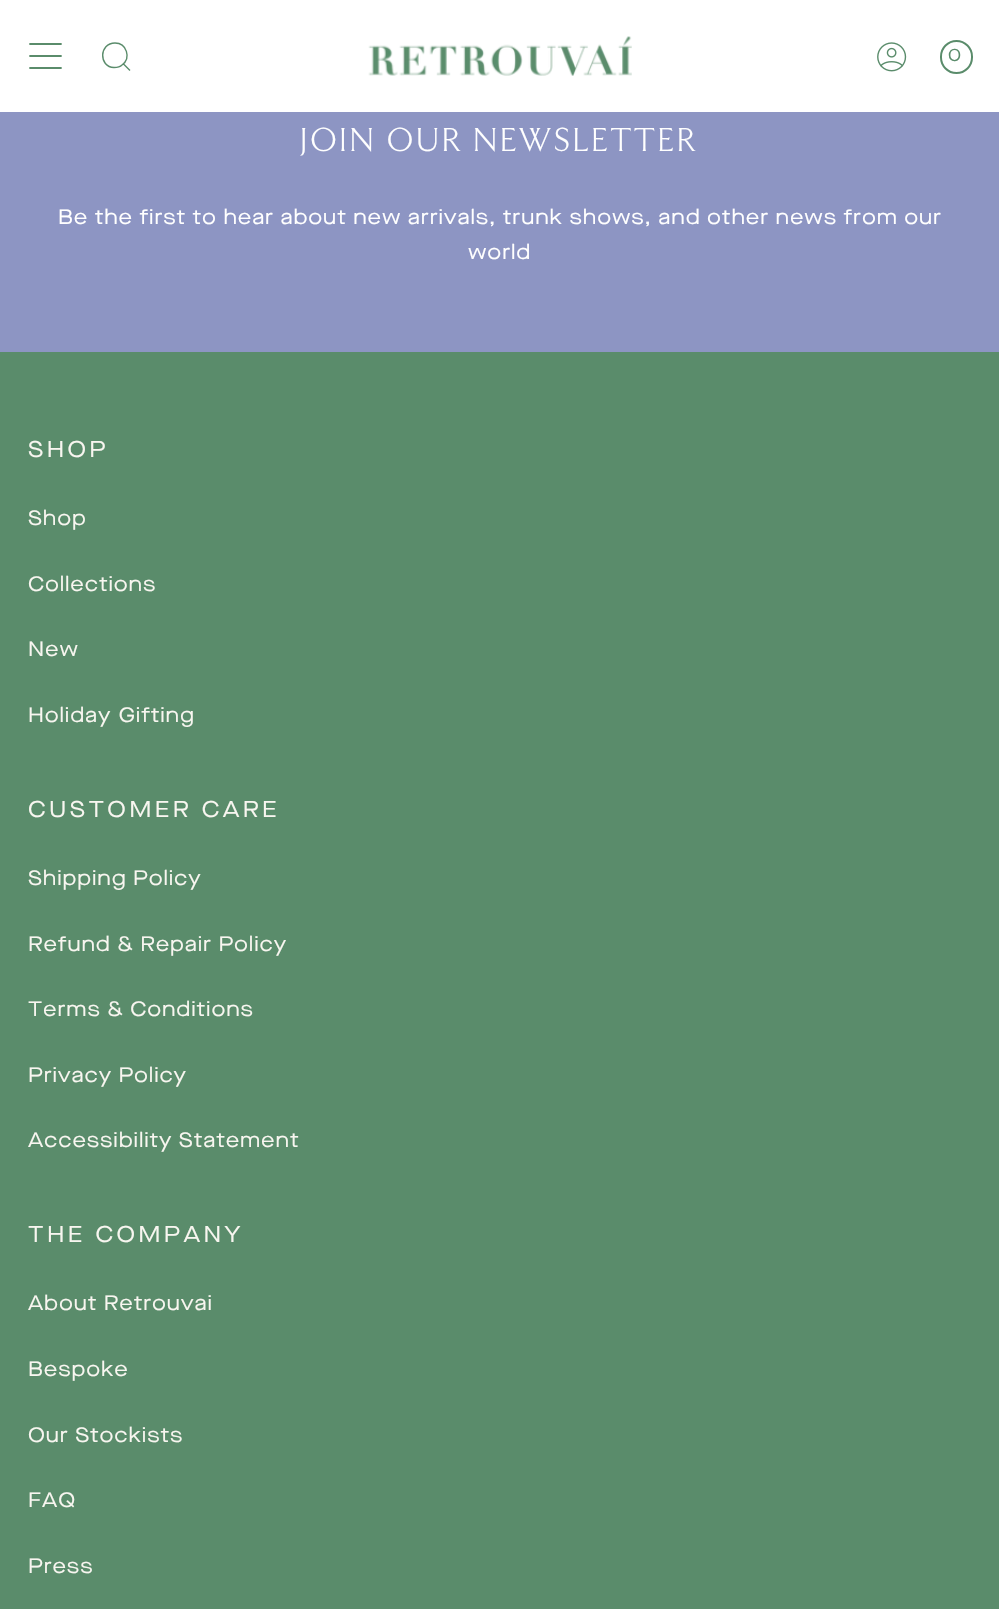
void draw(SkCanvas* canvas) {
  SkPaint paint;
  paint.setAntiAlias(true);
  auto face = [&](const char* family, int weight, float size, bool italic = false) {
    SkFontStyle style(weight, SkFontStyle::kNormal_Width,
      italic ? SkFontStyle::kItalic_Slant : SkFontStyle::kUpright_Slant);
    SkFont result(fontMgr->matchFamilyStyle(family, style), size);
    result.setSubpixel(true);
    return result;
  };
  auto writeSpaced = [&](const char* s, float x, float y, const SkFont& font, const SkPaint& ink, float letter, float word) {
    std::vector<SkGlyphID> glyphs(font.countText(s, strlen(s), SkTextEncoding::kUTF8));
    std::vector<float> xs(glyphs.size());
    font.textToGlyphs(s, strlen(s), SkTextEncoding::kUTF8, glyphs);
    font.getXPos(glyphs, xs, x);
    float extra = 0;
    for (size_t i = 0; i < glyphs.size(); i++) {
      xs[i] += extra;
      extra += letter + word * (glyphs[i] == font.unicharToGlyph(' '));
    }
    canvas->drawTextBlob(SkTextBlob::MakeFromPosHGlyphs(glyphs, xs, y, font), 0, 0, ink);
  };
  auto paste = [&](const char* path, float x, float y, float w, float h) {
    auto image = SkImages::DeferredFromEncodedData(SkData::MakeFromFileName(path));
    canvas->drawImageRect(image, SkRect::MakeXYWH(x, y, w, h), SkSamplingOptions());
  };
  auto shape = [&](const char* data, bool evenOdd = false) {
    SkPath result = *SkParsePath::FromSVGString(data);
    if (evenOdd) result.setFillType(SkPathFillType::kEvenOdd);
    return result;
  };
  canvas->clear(0xff8d95c3);
  paint.setColor(0xffffffff);
  canvas->drawRect(SkRect::MakeXYWH(0, 0, 999, 112), paint);
  paint.setStroke(true);
  paint.setStrokeWidth(1.8f);
  paint.setStrokeCap(SkPaint::kRound_Cap);
  paint.setStrokeJoin(SkPaint::kRound_Join);
  paint.setColor(0xff5a8c6b);
  canvas->drawPath(shape("M30 44H61M30 56H61M30 68H61"), paint);
  paint.setStrokeWidth(1.4f);
  paint.setStrokeCap(SkPaint::kButt_Cap);
  paint.setStrokeJoin(SkPaint::kMiter_Join);
  canvas->drawPath(shape("M115 43C126.5 43 131.5 58 122 65C120 67 117 67.5 114 67.5C98.5 67 99 43 115 43ZM123.5 64L130 70.5"), paint);
  paste("img/1.png", 368, 36, 264, 40);
  paste("img/2.png", 877, 42, 30, 30);
  paint.setStrokeWidth(2);
  canvas->drawRoundRect(SkRect::MakeXYWH(941, 41, 31, 32), 15.5f, 15.5f, paint);
  paint.setStroke(false);
  canvas->drawRect(SkRect::MakeXYWH(0, 352, 999, 1257), paint);
  auto f0 = face("Maison Neue", 400, 18);
  writeSpaced("0", 948, 61, f0, paint, 2.75f, 0);
  auto f1 = face("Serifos", 400, 33);
  paint.setColor(0xffffffff);
  writeSpaced("JOIN OUR NEWSLETTER", 300, 151, f1, paint, 2.75f, 0);
  auto f2 = face("Maison Neue", 400, 20.8f);
  writeSpaced("Be the first to hear about new arrivals, trunk shows, and other news from our", 58, 224, f2, paint, 0.88f, 0);
  writeSpaced("world", 468, 259, f2, paint, 0.88f, 0);
  auto f3 = face("Maison Neue", 400, 22.75f);
  paint.setColor(0xfff8f6f0);
  writeSpaced("SHOP", 28, 457, f3, paint, 3.4f, 0);
  {
    const struct { const char* s; float x, y; } items[] = {
      {"Shop", 28, 525},
      {"Collections", 28, 591},
      {"New", 28, 656},
    };
    for (auto [s, x, y] : items) {
      writeSpaced(s, x, y, f2, paint, 0.88f, 0);
    }
  }
  writeSpaced("Holiday Gifting", 28, 722, f2, paint, 0.88f, 1);
  writeSpaced("CUSTOMER CARE", 28, 817, f3, paint, 3.4f, 0);
  {
    const struct { const char* s; float x, y; } items[] = {
      {"Shipping Policy", 28, 885},
      {"Refund & Repair Policy", 28, 951},
      {"Terms & Conditions", 28, 1016},
      {"Privacy Policy", 28, 1082},
      {"Accessibility Statement", 28, 1147},
    };
    for (auto [s, x, y] : items) {
      writeSpaced(s, x, y, f2, paint, 0.88f, 0);
    }
  }
  writeSpaced("THE COMPANY", 28, 1242, f3, paint, 3.4f, 0);
  {
    const struct { const char* s; float x, y; } items[] = {
      {"About Retrouvai", 28, 1310},
      {"Bespoke", 28, 1376},
      {"Our Stockists", 28, 1442},
      {"FAQ", 28, 1507},
      {"Press", 28, 1573},
    };
    for (auto [s, x, y] : items) {
      writeSpaced(s, x, y, f2, paint, 0.88f, 0);
    }
  }
}
